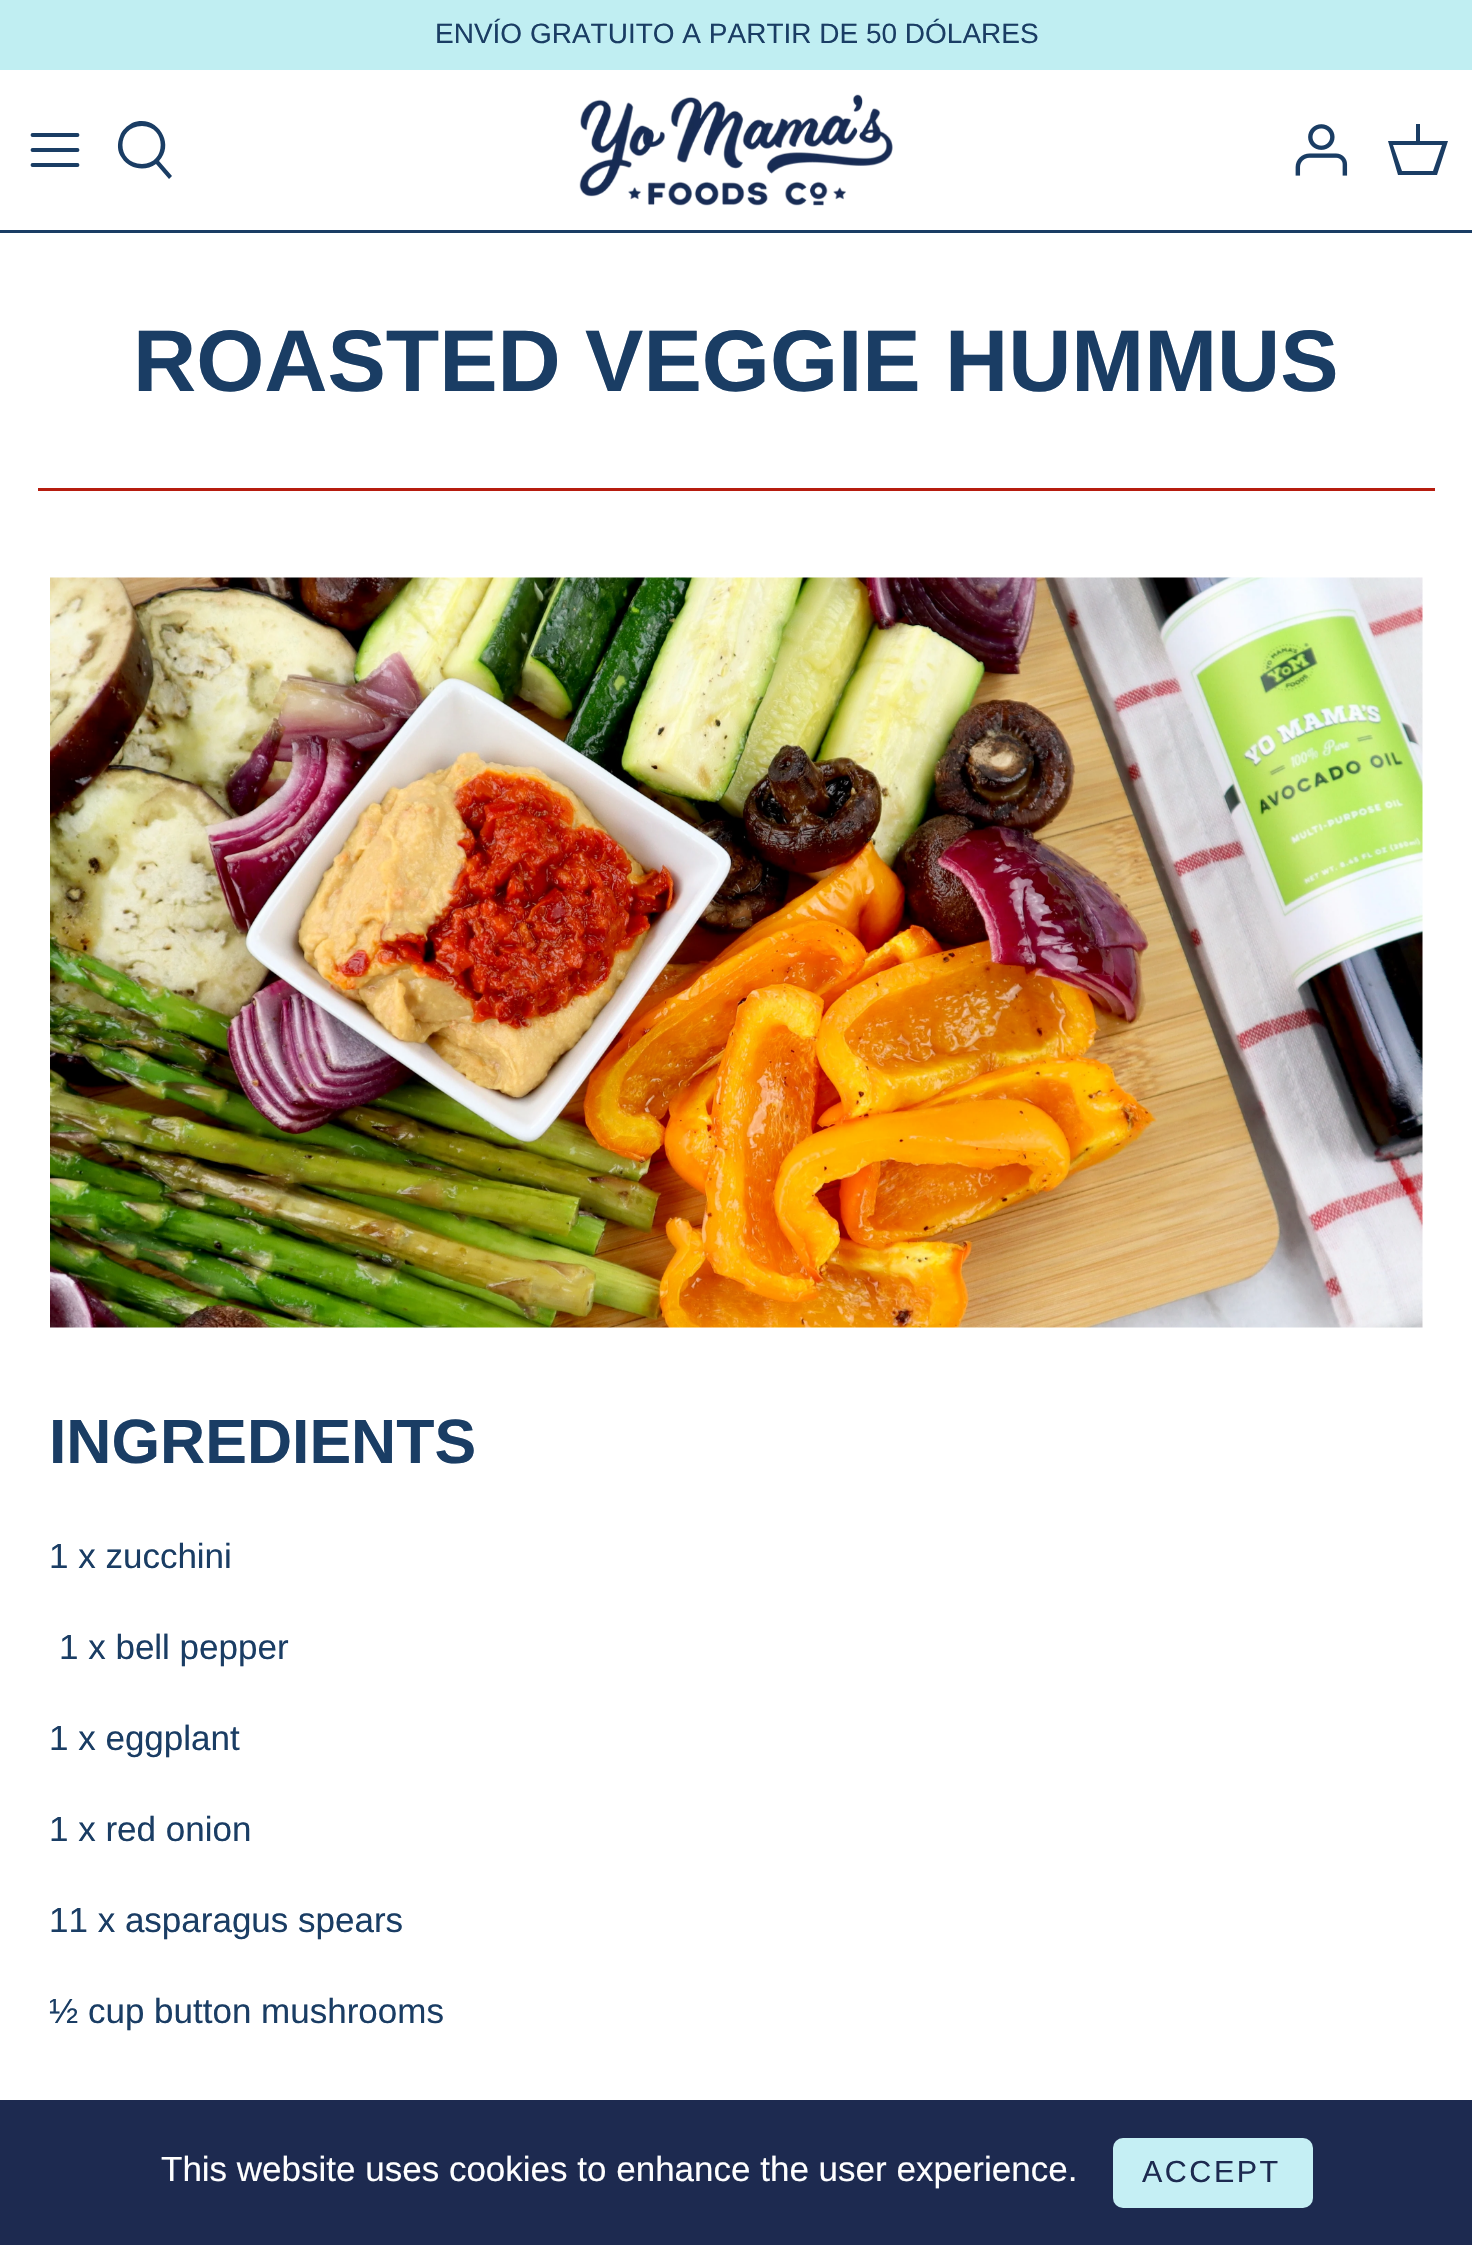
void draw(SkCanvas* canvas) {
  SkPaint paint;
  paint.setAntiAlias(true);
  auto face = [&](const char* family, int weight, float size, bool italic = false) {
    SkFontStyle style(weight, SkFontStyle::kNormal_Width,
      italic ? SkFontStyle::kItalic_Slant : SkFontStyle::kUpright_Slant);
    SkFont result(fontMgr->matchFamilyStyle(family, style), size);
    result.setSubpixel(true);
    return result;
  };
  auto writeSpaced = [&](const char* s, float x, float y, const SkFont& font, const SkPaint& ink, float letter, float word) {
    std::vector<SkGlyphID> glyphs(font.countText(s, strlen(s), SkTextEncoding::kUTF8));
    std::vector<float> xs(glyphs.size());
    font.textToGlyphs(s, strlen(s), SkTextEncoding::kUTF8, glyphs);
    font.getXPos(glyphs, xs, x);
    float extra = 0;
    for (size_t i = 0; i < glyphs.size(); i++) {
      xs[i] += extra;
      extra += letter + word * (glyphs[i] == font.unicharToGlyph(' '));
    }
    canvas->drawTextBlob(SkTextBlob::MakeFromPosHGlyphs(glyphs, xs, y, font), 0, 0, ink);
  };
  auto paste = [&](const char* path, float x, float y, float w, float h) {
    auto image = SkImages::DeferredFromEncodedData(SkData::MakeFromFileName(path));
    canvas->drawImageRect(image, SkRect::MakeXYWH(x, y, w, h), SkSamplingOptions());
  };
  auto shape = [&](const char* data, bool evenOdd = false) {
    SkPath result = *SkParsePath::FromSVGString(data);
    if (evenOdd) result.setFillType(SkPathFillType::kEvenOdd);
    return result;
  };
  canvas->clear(0xffffffff);
  paint.setColor(0xffc0eef2);
  canvas->drawRect(SkRect::MakeXYWH(0, 0, 1472, 70), paint);
  paint.setColor(0xff1a3d64);
  canvas->drawRect(SkRect::MakeXYWH(0, 230, 1472, 3), paint);
  paint.setStroke(true);
  paint.setStrokeWidth(3.8f);
  paint.setStrokeCap(SkPaint::kRound_Cap);
  paint.setStrokeJoin(SkPaint::kRound_Join);
  canvas->drawPath(shape("M32.5 150H77.5M32.5 135H77.5M32.5 165H77.5"), paint);
  paint.setStroke(false);
  canvas->drawPath(shape("M159 161L172 176L169 179L156 164C145 172 129 169 122 158C117 152 117 143 120 136C122 130 127 126 132 123C156 113 176 143 159 161ZM142 164C167 164 167 126 142 126C116 126 116 164 142 164Z"), paint);
  paste("img/1.png", 579, 94, 314, 112);
  paste("img/2.png", 1295, 124, 53, 52);
  canvas->drawPath(shape("M1416 141V124H1420V141H1448L1437 175H1398L1388 141ZM1393 145L1402 171H1433L1442 145Z"), paint);
  paint.setColor(0xffb61d0f);
  canvas->drawRect(SkRect::MakeXYWH(38, 488, 1397, 3), paint);
  paste("img/3.png", 50, 577, 1373, 751);
  paint.setColor(0xff1d2a50);
  canvas->drawRect(SkRect::MakeXYWH(0, 2100, 1472, 145), paint);
  paint.setColor(0xffc5eff4);
  canvas->drawRoundRect(SkRect::MakeXYWH(1113, 2138, 200, 70), 10, 10, paint);
  auto f0 = face("Liberation Sans", 400, 28);
  paint.setColor(0xff1a3d64);
  canvas->drawString("ENVÍO GRATUITO A PARTIR DE 50 DÓLARES", 435, 43, f0, paint);
  auto f1 = face("Liberation Sans", 700, 87.5f);
  canvas->drawString("ROASTED VEGGIE HUMMUS", 133, 391, f1, paint);
  auto f2 = face("Liberation Sans", 700, 62.5f);
  canvas->drawString("INGREDIENTS", 49, 1463, f2, paint);
  auto f3 = face("Liberation Sans", 400, 35);
  {
    const struct { const char* s; float x, y; } items[] = {
      {"1 x zucchini", 49, 1568},
      {"1 x bell pepper", 59, 1659},
      {"1 x eggplant", 49, 1750},
      {"1 x red onion", 49, 1841},
      {"11 x asparagus spears", 49, 1932},
      {"½ cup button mushrooms", 49, 2023},
    };
    for (auto [s, x, y] : items) {
      canvas->drawString(s, x, y, f3, paint);
    }
  }
  paint.setColor(0xffffffff);
  canvas->drawString("This website uses cookies to enhance the user experience.", 161, 2181, f3, paint);
  auto f4 = face("Liberation Sans", 400, 30.5f);
  paint.setColor(0xff1d2a50);
  writeSpaced("ACCEPT", 1142, 2182, f4, paint, 2.5f, 0);
}
